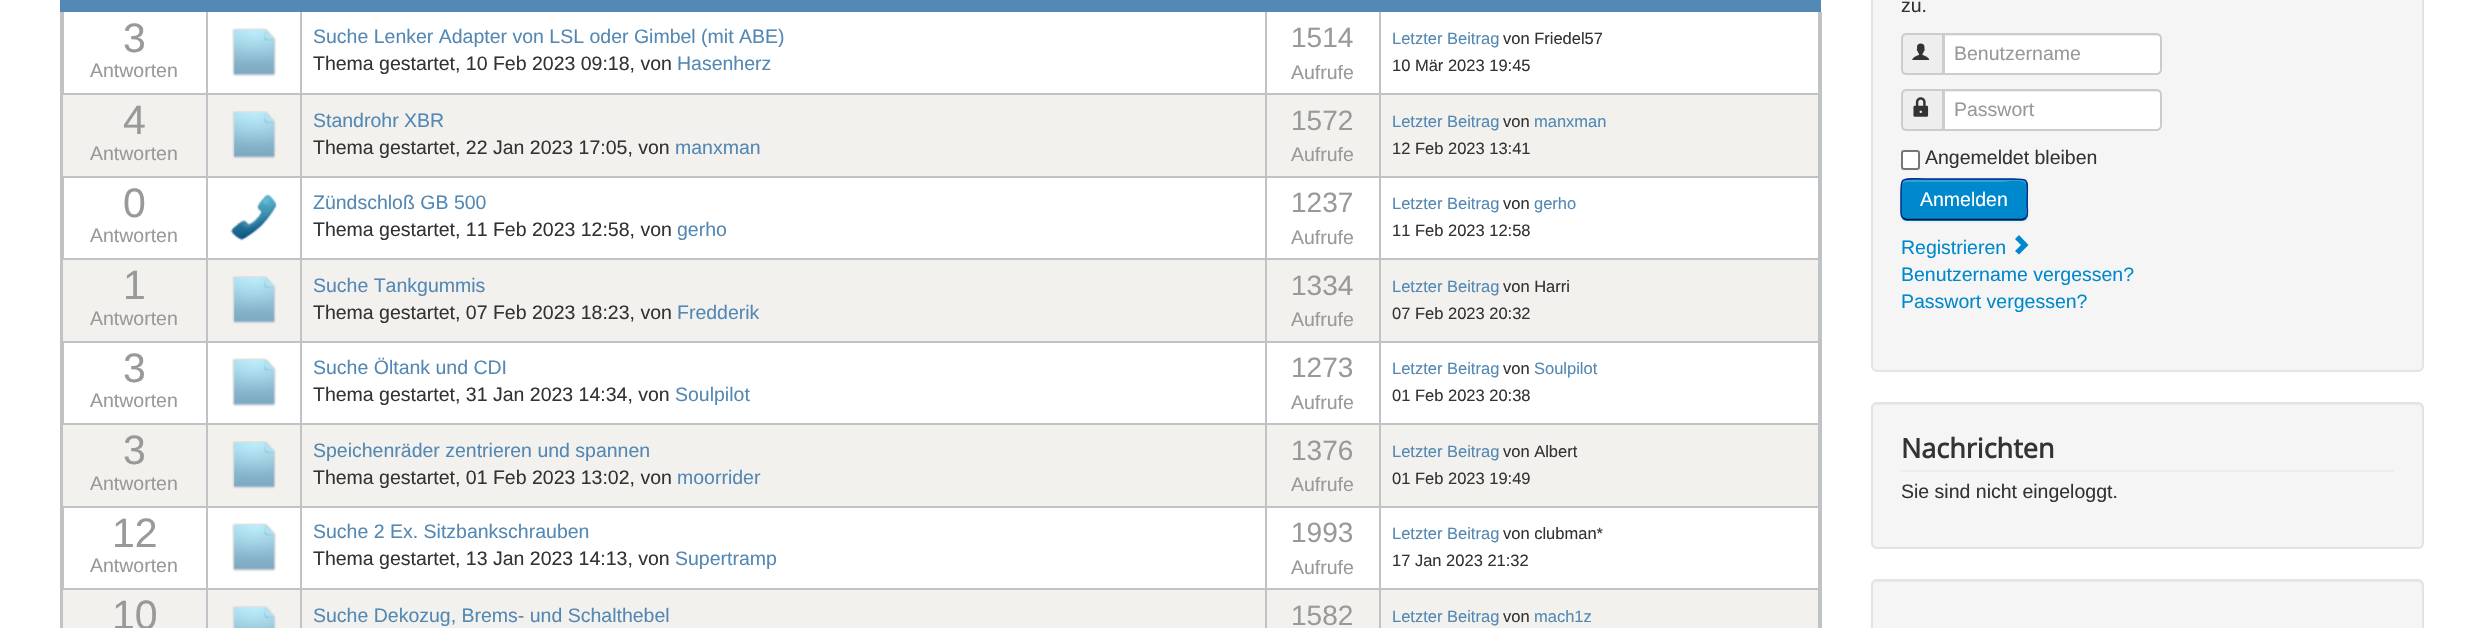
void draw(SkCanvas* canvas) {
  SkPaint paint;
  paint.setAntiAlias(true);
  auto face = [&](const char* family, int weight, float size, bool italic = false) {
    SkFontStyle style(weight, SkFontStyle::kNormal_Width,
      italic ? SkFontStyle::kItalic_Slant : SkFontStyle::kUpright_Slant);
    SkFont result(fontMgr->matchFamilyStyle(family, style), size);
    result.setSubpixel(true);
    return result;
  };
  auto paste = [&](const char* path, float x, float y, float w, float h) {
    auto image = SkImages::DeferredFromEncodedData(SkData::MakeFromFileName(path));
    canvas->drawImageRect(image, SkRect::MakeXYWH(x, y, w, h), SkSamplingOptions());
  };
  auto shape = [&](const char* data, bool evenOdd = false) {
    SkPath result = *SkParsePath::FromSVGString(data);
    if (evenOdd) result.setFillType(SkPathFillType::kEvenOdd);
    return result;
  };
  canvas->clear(0xffffffff);
  {
    const struct { float x, y, w, h; SkColor color; } items[] = {
      {60, 0, 1761, 12, 0xff5388b4},
      {1818, 12, 4, 616, 0xffbfc3c6},
      {60, 12, 4, 616, 0xffbfc3c6},
      {1379, 588, 2, 40, 0xffbfc3c6},
      {1379, 588, 439, 2, 0xffbfc3c6},
      {1379, 506, 2, 84, 0xffbfc3c6},
      {1379, 506, 439, 2, 0xffbfc3c6},
      {1379, 423, 2, 84, 0xffbfc3c6},
      {1379, 423, 439, 2, 0xffbfc3c6},
      {1379, 341, 2, 84, 0xffbfc3c6},
      {1379, 341, 439, 2, 0xffbfc3c6},
      {1379, 258, 2, 84, 0xffbfc3c6},
      {1379, 258, 439, 2, 0xffbfc3c6},
      {1379, 176, 2, 84, 0xffbfc3c6},
      {1379, 176, 439, 2, 0xffbfc3c6},
      {1379, 93, 2, 84, 0xffbfc3c6},
      {1379, 93, 439, 2, 0xffbfc3c6},
      {1379, 12, 2, 83, 0xffbfc3c6},
      {1265, 588, 2, 40, 0xffbfc3c6},
      {1265, 588, 115, 2, 0xffbfc3c6},
      {1265, 506, 2, 84, 0xffbfc3c6},
      {1265, 506, 115, 2, 0xffbfc3c6},
      {1265, 423, 2, 84, 0xffbfc3c6},
      {1265, 423, 115, 2, 0xffbfc3c6},
      {1265, 341, 2, 84, 0xffbfc3c6},
      {1265, 341, 115, 2, 0xffbfc3c6},
      {1265, 258, 2, 84, 0xffbfc3c6},
      {1265, 258, 115, 2, 0xffbfc3c6},
      {1265, 176, 2, 84, 0xffbfc3c6},
      {1265, 176, 115, 2, 0xffbfc3c6},
      {1265, 93, 2, 84, 0xffbfc3c6},
      {1265, 93, 115, 2, 0xffbfc3c6},
      {1265, 12, 2, 83, 0xffbfc3c6},
      {300, 588, 2, 40, 0xffbfc3c6},
      {300, 588, 966, 2, 0xffbfc3c6},
      {300, 506, 2, 84, 0xffbfc3c6},
      {300, 506, 966, 2, 0xffbfc3c6},
      {300, 423, 2, 84, 0xffbfc3c6},
      {300, 423, 966, 2, 0xffbfc3c6},
      {300, 341, 2, 84, 0xffbfc3c6},
      {300, 341, 966, 2, 0xffbfc3c6},
      {300, 258, 2, 84, 0xffbfc3c6},
      {300, 258, 966, 2, 0xffbfc3c6},
      {300, 176, 2, 84, 0xffbfc3c6},
      {300, 176, 966, 2, 0xffbfc3c6},
      {300, 93, 2, 84, 0xffbfc3c6},
      {300, 93, 966, 2, 0xffbfc3c6},
      {300, 12, 2, 83, 0xffbfc3c6},
      {206, 588, 2, 40, 0xffbfc3c6},
      {206, 588, 96, 2, 0xffbfc3c6},
      {206, 506, 2, 84, 0xffbfc3c6},
      {206, 506, 96, 2, 0xffbfc3c6},
      {206, 423, 2, 84, 0xffbfc3c6},
      {206, 423, 96, 2, 0xffbfc3c6},
      {206, 341, 2, 84, 0xffbfc3c6},
      {206, 341, 96, 2, 0xffbfc3c6},
      {206, 258, 2, 84, 0xffbfc3c6},
      {206, 258, 96, 2, 0xffbfc3c6},
      {206, 176, 2, 84, 0xffbfc3c6},
      {206, 176, 96, 2, 0xffbfc3c6},
      {206, 93, 2, 84, 0xffbfc3c6},
      {206, 93, 96, 2, 0xffbfc3c6},
      {206, 12, 2, 83, 0xffbfc3c6},
      {63, 93, 144, 2, 0xffbfc3c6},
    };
    for (auto [x, y, w, h, color] : items) {
      paint.setColor(color);
      canvas->drawRect(SkRect::MakeXYWH(x, y, w, h), paint);
    }
  }
  paste("img/1.png", 232, 28, 45, 49);
  {
    const struct { float x, y, w, h; SkColor color; } items[] = {
      {63, 95, 143, 81, 0xfff2f1ee},
      {63, 176, 144, 2, 0xffbfc3c6},
      {208, 95, 92, 81, 0xfff2f1ee},
    };
    for (auto [x, y, w, h, color] : items) {
      paint.setColor(color);
      canvas->drawRect(SkRect::MakeXYWH(x, y, w, h), paint);
    }
  }
  paste("img/2.png", 232, 111, 44, 48);
  {
    const struct { float x, y, w, h; SkColor color; } items[] = {
      {302, 95, 963, 81, 0xfff2f1ee},
      {1267, 95, 112, 81, 0xfff2f1ee},
      {1381, 95, 437, 81, 0xfff2f1ee},
      {63, 258, 144, 2, 0xffbfc3c6},
    };
    for (auto [x, y, w, h, color] : items) {
      paint.setColor(color);
      canvas->drawRect(SkRect::MakeXYWH(x, y, w, h), paint);
    }
  }
  paste("img/3.png", 230, 194, 47, 47);
  {
    const struct { float x, y, w, h; SkColor color; } items[] = {
      {63, 260, 143, 81, 0xfff2f1ee},
      {63, 341, 144, 2, 0xffbfc3c6},
      {208, 260, 92, 81, 0xfff2f1ee},
    };
    for (auto [x, y, w, h, color] : items) {
      paint.setColor(color);
      canvas->drawRect(SkRect::MakeXYWH(x, y, w, h), paint);
    }
  }
  paste("img/2.png", 232, 276, 44, 48);
  {
    const struct { float x, y, w, h; SkColor color; } items[] = {
      {302, 260, 963, 81, 0xfff2f1ee},
      {1267, 260, 112, 81, 0xfff2f1ee},
      {1381, 260, 437, 81, 0xfff2f1ee},
      {63, 423, 144, 2, 0xffbfc3c6},
    };
    for (auto [x, y, w, h, color] : items) {
      paint.setColor(color);
      canvas->drawRect(SkRect::MakeXYWH(x, y, w, h), paint);
    }
  }
  paste("img/1.png", 232, 358, 45, 49);
  {
    const struct { float x, y, w, h; SkColor color; } items[] = {
      {63, 425, 143, 81, 0xfff2f1ee},
      {63, 506, 144, 2, 0xffbfc3c6},
      {208, 425, 92, 81, 0xfff2f1ee},
    };
    for (auto [x, y, w, h, color] : items) {
      paint.setColor(color);
      canvas->drawRect(SkRect::MakeXYWH(x, y, w, h), paint);
    }
  }
  paste("img/2.png", 232, 441, 44, 48);
  {
    const struct { float x, y, w, h; SkColor color; } items[] = {
      {302, 425, 963, 81, 0xfff2f1ee},
      {1267, 425, 112, 81, 0xfff2f1ee},
      {1381, 425, 437, 81, 0xfff2f1ee},
      {63, 588, 144, 2, 0xffbfc3c6},
    };
    for (auto [x, y, w, h, color] : items) {
      paint.setColor(color);
      canvas->drawRect(SkRect::MakeXYWH(x, y, w, h), paint);
    }
  }
  paste("img/1.png", 232, 523, 45, 49);
  paint.setColor(0xfff2f1ee);
  canvas->drawRect(SkRect::MakeXYWH(63, 590, 143, 38), paint);
  canvas->drawRect(SkRect::MakeXYWH(208, 590, 92, 38), paint);
  paste("img/4.png", 232, 606, 44, 22);
  {
    const struct { float x, y, w, h; SkColor color; } items[] = {
      {302, 590, 963, 38, 0xfff2f1ee},
      {1267, 590, 112, 38, 0xfff2f1ee},
      {1381, 590, 437, 38, 0xfff2f1ee},
    };
    for (auto [x, y, w, h, color] : items) {
      paint.setColor(color);
      canvas->drawRect(SkRect::MakeXYWH(x, y, w, h), paint);
    }
  }
  paint.setColor(0xfff5f5f5);
  canvas->drawRoundRect(SkRect::MakeXYWH(1872, -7, 551, 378), 5, 5, paint);
  paint.setStroke(true);
  paint.setStrokeWidth(2);
  paint.setColor(0xffe3e3e3);
  canvas->drawRoundRect(SkRect::MakeXYWH(1872, -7, 551, 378), 5, 5, paint);
  paint.setStroke(false);
  paint.setColor(0xffeeeeee);
  canvas->drawPath(shape("M1906 34H1943V74H1906C1904 74 1902 72 1902 70V38C1902 36 1904 34 1906 34Z"), paint);
  paint.setStroke(true);
  paint.setColor(0xffcccccc);
  canvas->drawPath(shape("M1906 34H1943V74H1906C1904 74 1902 72 1902 70V38C1902 36 1904 34 1906 34Z"), paint);
  paste("img/5.png", 1912, 43, 18, 17);
  paint.setStroke(false);
  paint.setColor(0xffffffff);
  canvas->drawPath(shape("M1943 33H2157C2160 33 2162 35 2162 38V70C2162 73 2160 75 2157 75H1943Z"), paint);
  paint.setColor(0xffececec);
  canvas->drawPath(shape("M1944 36H2157C2159 36 2160 37 2160 39V38C2160 36 2159 35 2157 35H1944Z"), paint);
  paint.setStroke(true);
  paint.setColor(0xffcccccc);
  canvas->drawPath(shape("M1944 34H2157C2159 34 2161 36 2161 38V70C2161 72 2159 74 2157 74H1944Z"), paint);
  paint.setStroke(false);
  paint.setColor(0xffeeeeee);
  canvas->drawPath(shape("M1906 90H1943V130H1906C1904 130 1902 128 1902 126V94C1902 92 1904 90 1906 90Z"), paint);
  paint.setStroke(true);
  paint.setColor(0xffcccccc);
  canvas->drawPath(shape("M1906 90H1943V130H1906C1904 130 1902 128 1902 126V94C1902 92 1904 90 1906 90Z"), paint);
  paste("img/6.png", 1913, 97, 16, 20);
  paint.setStroke(false);
  paint.setColor(0xffffffff);
  canvas->drawPath(shape("M1943 89H2157C2160 89 2162 91 2162 94V126C2162 129 2160 131 2157 131H1943Z"), paint);
  paint.setColor(0xffececec);
  canvas->drawPath(shape("M1944 92H2157C2159 92 2160 93 2160 94V93C2160 91 2159 90 2157 90H1944Z"), paint);
  paint.setStroke(true);
  paint.setColor(0xffcccccc);
  canvas->drawPath(shape("M1944 90H2157C2159 90 2161 92 2161 94V126C2161 128 2159 130 2157 130H1944Z"), paint);
  paint.setStroke(false);
  paint.setColor(0xffffffff);
  canvas->drawRoundRect(SkRect::MakeXYWH(1902, 151, 17, 18), 2, 2, paint);
  paint.setStroke(true);
  paint.setColor(0xff767676);
  canvas->drawRoundRect(SkRect::MakeXYWH(1902, 151, 17, 18), 2, 2, paint);
  paint.setStroke(false);
  paint.setColor(0x0d000000);
  paint.setMaskFilter(SkMaskFilter::MakeBlur(kNormal_SkBlurStyle, 1.5f));
  canvas->drawRoundRect(SkRect::MakeXYWH(1901, 180, 127, 42), 6, 6, paint);
  paint.setMaskFilter(nullptr);
  paint.setColor(0xff0088cc);
  canvas->drawRoundRect(SkRect::MakeXYWH(1901, 179, 127, 42), 6, 6, paint);
  paint.setColor(0xff33a0d6);
  canvas->drawPath(shape("M1906 182H2003C2008 182 2024 178 2026 185V217C2027 216 2027 215 2027 214V185C2027 182 2025 180 2022 180H1907C1904 180 1902 182 1902 185V186C1902 184 1904 182 1906 182Z"), paint);
  paint.setStroke(true);
  paint.setStrokeWidth(1.5f);
  paint.setColor(0xff001641);
  canvas->drawPath(shape("M2025.5 218L2022.5 219.5H1906L1903 218"), paint);
  paint.setColor(0xff002f8d);
  canvas->drawPath(shape("M1903 218C1900.5 216 1901 212.5 1901 209.5V199.5C1901 175 1899 179 1926 179H2003C2032 179 2027 175.5 2027 204.5C2027 208 2029 215 2025.5 218"), paint);
  paint.setStroke(false);
  paint.setColor(0xff0088cc);
  canvas->drawPath(shape("M2019 235L2028.5 245L2019 254.5L2015 251L2021 245L2015 239Z"), paint);
  paint.setColor(0xfff5f5f5);
  canvas->drawRoundRect(SkRect::MakeXYWH(1871, 402, 553, 147), 6, 6, paint);
  paint.setColor(0xffe9e9e9);
  canvas->drawPath(shape("M1876 405H2418C2420 405 2422 407 2422 410V544L2421 547C2422 546 2423 544 2423 543V409C2423 406 2421 404 2418 404H1877C1874 404 1872 406 1872 409V410C1872 407 1874 405 1876 405Z"), paint);
  paint.setStroke(true);
  paint.setStrokeWidth(2);
  paint.setColor(0xffe3e3e3);
  canvas->drawRoundRect(SkRect::MakeXYWH(1872, 403, 551, 145), 5, 5, paint);
  paint.setStroke(false);
  paint.setColor(0xffeeeeee);
  canvas->drawRect(SkRect::MakeXYWH(1901, 470, 493, 2), paint);
  paint.setColor(0xfff5f5f5);
  canvas->drawRoundRect(SkRect::MakeXYWH(1871, 579, 553, 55), 6, 6, paint);
  paint.setColor(0xffe9e9e9);
  canvas->drawPath(shape("M1876 582H2418C2420 582 2422 584 2422 586V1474L2421 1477C2422 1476 2423 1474 2423 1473V586C2423 583 2421 581 2418 581H1877C1874 581 1872 583 1872 586C1872 584 1874 582 1876 582Z"), paint);
  paint.setStroke(true);
  paint.setColor(0xffe3e3e3);
  canvas->drawRoundRect(SkRect::MakeXYWH(1872, 580, 551, 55), 5, 5, paint);
  auto f0 = face("Liberation Sans", 400, 41);
  paint.setStroke(false);
  paint.setColor(0xff999999);
  canvas->drawString("3", 123, 52, f0, paint);
  auto f1 = face("Liberation Sans", 400, 19.5f);
  canvas->drawString("Antworten", 90, 77, f1, paint);
  paint.setColor(0xff5388b4);
  canvas->drawString("Suche Lenker Adapter von LSL oder Gimbel (mit ABE)", 313, 43, f1, paint);
  paint.setColor(0xff333333);
  canvas->drawString("Thema gestartet, 10 Feb 2023 09:18, von", 313, 70, f1, paint);
  paint.setColor(0xff5388b4);
  canvas->drawString("Hasenherz", 677, 70, f1, paint);
  auto f2 = face("Liberation Sans", 400, 28);
  paint.setColor(0xff999999);
  canvas->drawString("1514", 1291, 47, f2, paint);
  canvas->drawString("Aufrufe", 1291, 79, f1, paint);
  auto f3 = face("Liberation Sans", 400, 16.5f);
  paint.setColor(0xff5388b4);
  canvas->drawString("Letzter Beitrag", 1392, 44, f3, paint);
  paint.setColor(0xff333333);
  canvas->drawString("von Friedel57", 1503, 44, f3, paint);
  canvas->drawString("10 Mär 2023 19:45", 1392, 71, f3, paint);
  paint.setColor(0xff999999);
  canvas->drawString("4", 123, 134, f0, paint);
  canvas->drawString("Antworten", 90, 160, f1, paint);
  paint.setColor(0xff5388b4);
  canvas->drawString("Standrohr XBR", 313, 127, f1, paint);
  paint.setColor(0xff333333);
  canvas->drawString("Thema gestartet, 22 Jan 2023 17:05, von", 313, 154, f1, paint);
  paint.setColor(0xff5388b4);
  canvas->drawString("manxman", 675, 154, f1, paint);
  paint.setColor(0xff999999);
  canvas->drawString("1572", 1291, 130, f2, paint);
  canvas->drawString("Aufrufe", 1291, 161, f1, paint);
  paint.setColor(0xff5388b4);
  canvas->drawString("Letzter Beitrag", 1392, 127, f3, paint);
  paint.setColor(0xff333333);
  canvas->drawString("von", 1503, 127, f3, paint);
  paint.setColor(0xff5388b4);
  canvas->drawString("manxman", 1534, 127, f3, paint);
  paint.setColor(0xff333333);
  canvas->drawString("12 Feb 2023 13:41", 1392, 154, f3, paint);
  paint.setColor(0xff999999);
  canvas->drawString("0", 123, 217, f0, paint);
  canvas->drawString("Antworten", 90, 242, f1, paint);
  paint.setColor(0xff5388b4);
  canvas->drawString("Zündschloß GB 500", 313, 209, f1, paint);
  paint.setColor(0xff333333);
  canvas->drawString("Thema gestartet, 11 Feb 2023 12:58, von", 313, 236, f1, paint);
  paint.setColor(0xff5388b4);
  canvas->drawString("gerho", 677, 236, f1, paint);
  paint.setColor(0xff999999);
  canvas->drawString("1237", 1291, 212, f2, paint);
  canvas->drawString("Aufrufe", 1291, 244, f1, paint);
  paint.setColor(0xff5388b4);
  canvas->drawString("Letzter Beitrag", 1392, 209, f3, paint);
  paint.setColor(0xff333333);
  canvas->drawString("von", 1503, 209, f3, paint);
  paint.setColor(0xff5388b4);
  canvas->drawString("gerho", 1534, 209, f3, paint);
  paint.setColor(0xff333333);
  canvas->drawString("11 Feb 2023 12:58", 1392, 236, f3, paint);
  paint.setColor(0xff999999);
  canvas->drawString("1", 123, 299, f0, paint);
  canvas->drawString("Antworten", 90, 325, f1, paint);
  paint.setColor(0xff5388b4);
  canvas->drawString("Suche Tankgummis", 313, 292, f1, paint);
  paint.setColor(0xff333333);
  canvas->drawString("Thema gestartet, 07 Feb 2023 18:23, von", 313, 319, f1, paint);
  paint.setColor(0xff5388b4);
  canvas->drawString("Fredderik", 677, 319, f1, paint);
  paint.setColor(0xff999999);
  canvas->drawString("1334", 1291, 295, f2, paint);
  canvas->drawString("Aufrufe", 1291, 326, f1, paint);
  paint.setColor(0xff5388b4);
  canvas->drawString("Letzter Beitrag", 1392, 292, f3, paint);
  paint.setColor(0xff333333);
  canvas->drawString("von Harri", 1503, 292, f3, paint);
  canvas->drawString("07 Feb 2023 20:32", 1392, 319, f3, paint);
  paint.setColor(0xff999999);
  canvas->drawString("3", 123, 382, f0, paint);
  canvas->drawString("Antworten", 90, 407, f1, paint);
  paint.setColor(0xff5388b4);
  canvas->drawString("Suche Öltank und CDI", 313, 374, f1, paint);
  paint.setColor(0xff333333);
  canvas->drawString("Thema gestartet, 31 Jan 2023 14:34, von", 313, 401, f1, paint);
  paint.setColor(0xff5388b4);
  canvas->drawString("Soulpilot", 675, 401, f1, paint);
  paint.setColor(0xff999999);
  canvas->drawString("1273", 1291, 377, f2, paint);
  canvas->drawString("Aufrufe", 1291, 409, f1, paint);
  paint.setColor(0xff5388b4);
  canvas->drawString("Letzter Beitrag", 1392, 374, f3, paint);
  paint.setColor(0xff333333);
  canvas->drawString("von", 1503, 374, f3, paint);
  paint.setColor(0xff5388b4);
  canvas->drawString("Soulpilot", 1534, 374, f3, paint);
  paint.setColor(0xff333333);
  canvas->drawString("01 Feb 2023 20:38", 1392, 401, f3, paint);
  paint.setColor(0xff999999);
  canvas->drawString("3", 123, 464, f0, paint);
  canvas->drawString("Antworten", 90, 490, f1, paint);
  paint.setColor(0xff5388b4);
  canvas->drawString("Speichenräder zentrieren und spannen", 313, 457, f1, paint);
  paint.setColor(0xff333333);
  canvas->drawString("Thema gestartet, 01 Feb 2023 13:02, von", 313, 484, f1, paint);
  paint.setColor(0xff5388b4);
  canvas->drawString("moorrider", 677, 484, f1, paint);
  paint.setColor(0xff999999);
  canvas->drawString("1376", 1291, 460, f2, paint);
  canvas->drawString("Aufrufe", 1291, 491, f1, paint);
  paint.setColor(0xff5388b4);
  canvas->drawString("Letzter Beitrag", 1392, 457, f3, paint);
  paint.setColor(0xff333333);
  canvas->drawString("von Albert", 1503, 457, f3, paint);
  canvas->drawString("01 Feb 2023 19:49", 1392, 484, f3, paint);
  paint.setColor(0xff999999);
  canvas->drawString("12", 112, 547, f0, paint);
  canvas->drawString("Antworten", 90, 572, f1, paint);
  paint.setColor(0xff5388b4);
  canvas->drawString("Suche 2 Ex. Sitzbankschrauben", 313, 538, f1, paint);
  paint.setColor(0xff333333);
  canvas->drawString("Thema gestartet, 13 Jan 2023 14:13, von", 313, 565, f1, paint);
  paint.setColor(0xff5388b4);
  canvas->drawString("Supertramp", 675, 565, f1, paint);
  paint.setColor(0xff999999);
  canvas->drawString("1993", 1291, 542, f2, paint);
  canvas->drawString("Aufrufe", 1291, 574, f1, paint);
  paint.setColor(0xff5388b4);
  canvas->drawString("Letzter Beitrag", 1392, 539, f3, paint);
  paint.setColor(0xff333333);
  canvas->drawString("von clubman*", 1503, 539, f3, paint);
  canvas->drawString("17 Jan 2023 21:32", 1392, 566, f3, paint);
  paint.setColor(0xff999999);
  canvas->drawString("10", 112, 629, f0, paint);
  paint.setColor(0xff5388b4);
  canvas->drawString("Suche Dekozug, Brems- und Schalthebel", 313, 622, f1, paint);
  paint.setColor(0xff999999);
  canvas->drawString("1582", 1291, 625, f2, paint);
  paint.setColor(0xff5388b4);
  canvas->drawString("Letzter Beitrag", 1392, 622, f3, paint);
  paint.setColor(0xff333333);
  canvas->drawString("von", 1503, 622, f3, paint);
  paint.setColor(0xff5388b4);
  canvas->drawString("mach1z", 1534, 622, f3, paint);
  paint.setColor(0xff333333);
  canvas->drawString("zu.", 1901, 12, f1, paint);
  paint.setColor(0xff999999);
  canvas->drawString("Benutzername", 1954, 60, f1, paint);
  canvas->drawString("Passwort", 1954, 116, f1, paint);
  paint.setColor(0xff333333);
  canvas->drawString("Angemeldet bleiben", 1925, 164, f1, paint);
  paint.setColor(0xffffffff);
  canvas->drawString("Anmelden", 1920, 206, f1, paint);
  paint.setColor(0xff0088cc);
  {
    const struct { const char* s; float x, y; } items[] = {
      {"Registrieren", 1901, 254},
      {"Benutzername vergessen?", 1901, 281},
      {"Passwort vergessen?", 1901, 308},
    };
    for (auto [s, x, y] : items) {
      canvas->drawString(s, x, y, f1, paint);
    }
  }
  auto f4 = face("Open Sans", 700, 27);
  paint.setColor(0xff333333);
  canvas->drawString("Nachrichten", 1901, 458, f4, paint);
  canvas->drawString("Sie sind nicht eingeloggt.", 1901, 498, f1, paint);
}
